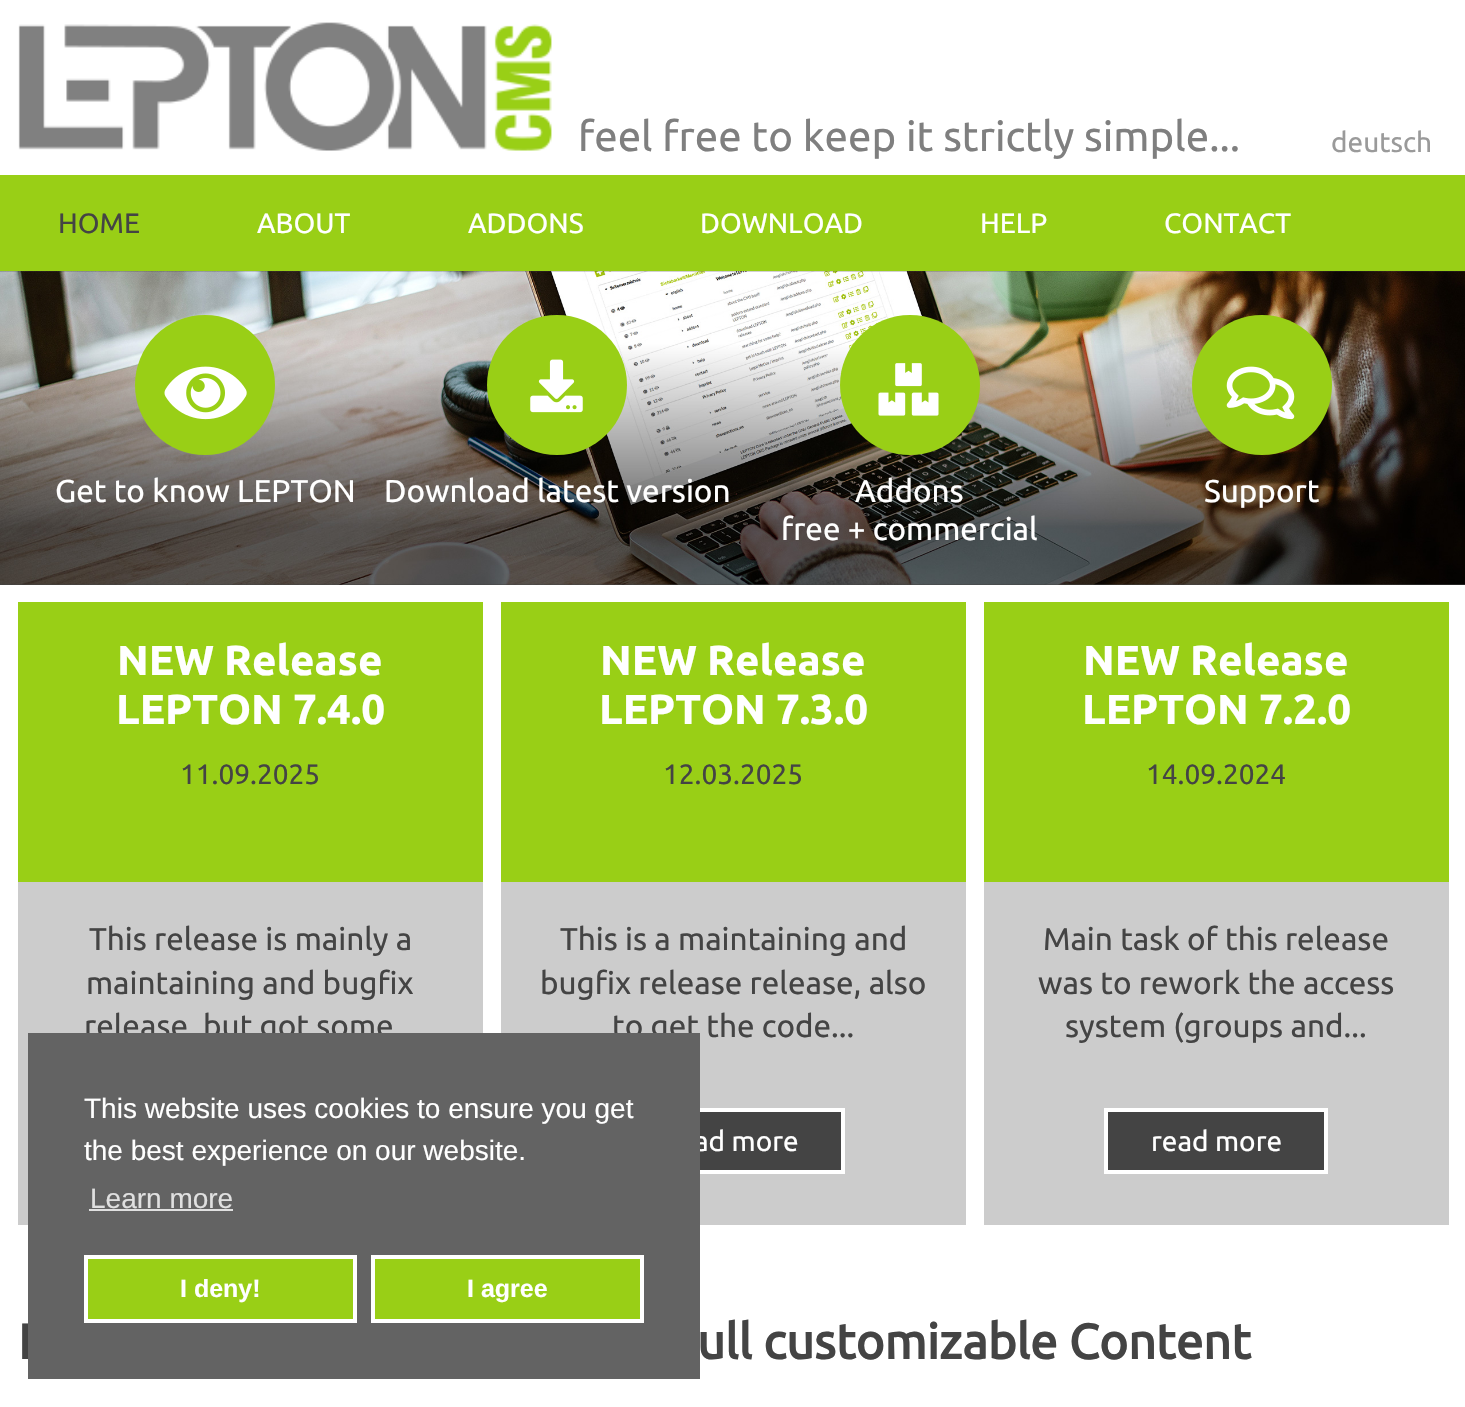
void draw(SkCanvas* canvas) {
  SkPaint paint;
  paint.setAntiAlias(true);
  auto face = [&](const char* family, int weight, float size, bool italic = false) {
    SkFontStyle style(weight, SkFontStyle::kNormal_Width,
      italic ? SkFontStyle::kItalic_Slant : SkFontStyle::kUpright_Slant);
    SkFont result(fontMgr->matchFamilyStyle(family, style), size);
    result.setSubpixel(true);
    return result;
  };
  auto paste = [&](const char* path, float x, float y, float w, float h) {
    auto image = SkImages::DeferredFromEncodedData(SkData::MakeFromFileName(path));
    canvas->drawImageRect(image, SkRect::MakeXYWH(x, y, w, h), SkSamplingOptions());
  };
  canvas->clear(0xff444444);
  paint.setColor(0xffffffff);
  canvas->drawRect(SkRect::MakeXYWH(0, 0, 1465, 175), paint);
  paste("img/1.png", 18, 22, 534, 129);
  paint.setColor(0xff99cf16);
  canvas->drawRect(SkRect::MakeXYWH(0, 175, 1465, 96), paint);
  paste("img/2.png", 0, 271, 1465, 314);
  canvas->drawCircle(205, 385, 70, paint);
  paste("img/3.png", 164, 366, 83, 54);
  canvas->drawCircle(557, 385, 70, paint);
  paste("img/4.png", 530, 359, 53, 54);
  canvas->drawCircle(910, 385, 70, paint);
  paste("img/5.png", 878, 363, 61, 53);
  canvas->drawCircle(1262, 385, 70, paint);
  paste("img/6.png", 1226, 366, 69, 54);
  {
    const struct { float x, y, w, h; SkColor color; } items[] = {
      {18, 882, 1431, 343, 0xffcccccc},
      {0, 585, 1465, 17, 0xffffffff},
      {0, 602, 18, 623, 0xffffffff},
      {18, 602, 465, 280, 0xff99cf16},
      {966, 602, 18, 623, 0xffffffff},
      {483, 602, 18, 431, 0xffffffff},
      {501, 602, 465, 280, 0xff99cf16},
      {700, 1112, 141, 58, 0xff444444},
    };
    for (auto [x, y, w, h, color] : items) {
      paint.setColor(color);
      canvas->drawRect(SkRect::MakeXYWH(x, y, w, h), paint);
    }
  }
  paint.setStroke(true);
  paint.setStrokeWidth(4);
  paint.setColor(0xffffffff);
  canvas->drawRect(SkRect::MakeXYWH(623, 1110, 220, 62), paint);
  paint.setStroke(false);
  canvas->drawRect(SkRect::MakeXYWH(1449, 602, 16, 623), paint);
  paint.setColor(0xff99cf16);
  canvas->drawRect(SkRect::MakeXYWH(984, 602, 465, 280), paint);
  paint.setColor(0xff444444);
  canvas->drawRect(SkRect::MakeXYWH(1106, 1110, 220, 62), paint);
  paint.setStroke(true);
  paint.setColor(0xffffffff);
  canvas->drawRect(SkRect::MakeXYWH(1106, 1110, 220, 62), paint);
  paint.setStroke(false);
  canvas->drawRect(SkRect::MakeXYWH(0, 1225, 1465, 182), paint);
  auto f0 = face("Ubuntu", 400, 42);
  paint.setColor(0xff7f7f7f);
  canvas->drawString("feel free to keep it strictly simple...", 578, 151, f0, paint);
  auto f1 = face("Ubuntu", 400, 28);
  paint.setColor(0xff9a9a9a);
  canvas->drawString("deutsch", 1331, 152, f1, paint);
  paint.setColor(0xff444444);
  canvas->drawString("HOME", 58, 233, f1, paint);
  paint.setColor(0xffffffff);
  {
    const struct { const char* s; float x, y; } items[] = {
      {"ABOUT", 257, 233},
      {"ADDONS", 468, 233},
      {"DOWNLOAD", 700, 233},
      {"HELP", 980, 233},
      {"CONTACT", 1164, 233},
    };
    for (auto [s, x, y] : items) {
      canvas->drawString(s, x, y, f1, paint);
    }
  }
  auto f2 = face("Ubuntu", 400, 31.5f);
  {
    const struct { const char* s; float x, y; } items[] = {
      {"Get to know LEPTON", 55, 502},
      {"Download latest version", 384, 502},
      {"Addons", 855, 502},
      {"free + commercial", 781, 540},
      {"Support", 1204, 502},
    };
    for (auto [s, x, y] : items) {
      canvas->drawString(s, x, y, f2, paint);
    }
  }
  auto f3 = face("Ubuntu", 700, 42);
  canvas->drawString("NEW Release", 117, 675, f3, paint);
  canvas->drawString("LEPTON 7.4.0", 116, 724, f3, paint);
  paint.setColor(0xff444444);
  canvas->drawString("11.09.2025", 180, 784, f1, paint);
  {
    const struct { const char* s; float x, y; } items[] = {
      {"This release is mainly a", 89, 950},
      {"maintaining and bugfix", 86, 994},
      {"release, but got some", 84, 1037},
    };
    for (auto [s, x, y] : items) {
      canvas->drawString(s, x, y, f2, paint);
    }
  }
  paint.setColor(0xffffffff);
  canvas->drawString("NEW Release", 600, 675, f3, paint);
  canvas->drawString("LEPTON 7.3.0", 599, 724, f3, paint);
  paint.setColor(0xff444444);
  canvas->drawString("12.03.2025", 663, 784, f1, paint);
  {
    const struct { const char* s; float x, y; } items[] = {
      {"This is a maintaining and", 560, 950},
      {"bugfix release release, also", 540, 994},
      {"to get the code...", 612, 1037},
    };
    for (auto [s, x, y] : items) {
      canvas->drawString(s, x, y, f2, paint);
    }
  }
  paint.setColor(0xffffffff);
  canvas->drawString("ad more", 694, 1151, f1, paint);
  canvas->drawString("NEW Release", 1083, 675, f3, paint);
  canvas->drawString("LEPTON 7.2.0", 1082, 724, f3, paint);
  paint.setColor(0xff444444);
  canvas->drawString("14.09.2024", 1146, 784, f1, paint);
  {
    const struct { const char* s; float x, y; } items[] = {
      {"Main task of this release", 1043, 950},
      {"was to rework the access", 1038, 994},
      {"system (groups and...", 1065, 1037},
    };
    for (auto [s, x, y] : items) {
      canvas->drawString(s, x, y, f2, paint);
    }
  }
  paint.setColor(0xffffffff);
  canvas->drawString("read more", 1151, 1151, f1, paint);
  auto f4 = face("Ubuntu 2", 700, 49);
  paint.setColor(0xff444444);
  canvas->drawString("L", 18, 1359, f4, paint);
  paint.setColor(0xff636363);
  canvas->drawRect(SkRect::MakeXYWH(28, 1033, 672, 346), paint);
  auto f5 = face("Liberation Sans", 400, 28);
  paint.setColor(0xffe0e0e0);
  canvas->drawString("Learn more", 90, 1208, f5, paint);
  canvas->drawRect(SkRect::MakeXYWH(89, 1209, 144, 2), paint);
  paint.setColor(0xff99cf16);
  canvas->drawRect(SkRect::MakeXYWH(373, 1257, 269, 64), paint);
  paint.setStroke(true);
  paint.setColor(0xffffffff);
  canvas->drawRect(SkRect::MakeXYWH(373, 1257, 269, 64), paint);
  auto f6 = face("Liberation Sans", 700, 25);
  paint.setStroke(false);
  canvas->drawString("I agree", 467, 1297, f6, paint);
  paint.setColor(0xff99cf16);
  canvas->drawRect(SkRect::MakeXYWH(86, 1257, 269, 64), paint);
  paint.setStroke(true);
  paint.setColor(0xffffffff);
  canvas->drawRect(SkRect::MakeXYWH(86, 1257, 269, 64), paint);
  paint.setStroke(false);
  canvas->drawString("I deny!", 180, 1297, f6, paint);
  canvas->drawString("the best experience on our website.", 84, 1160, f5, paint);
  canvas->drawString("This website uses cookies to ensure you get", 84, 1118, f5, paint);
  paint.setColor(0xff444444);
  canvas->drawString("ull customizable Content", 697, 1359, f4, paint);
}
